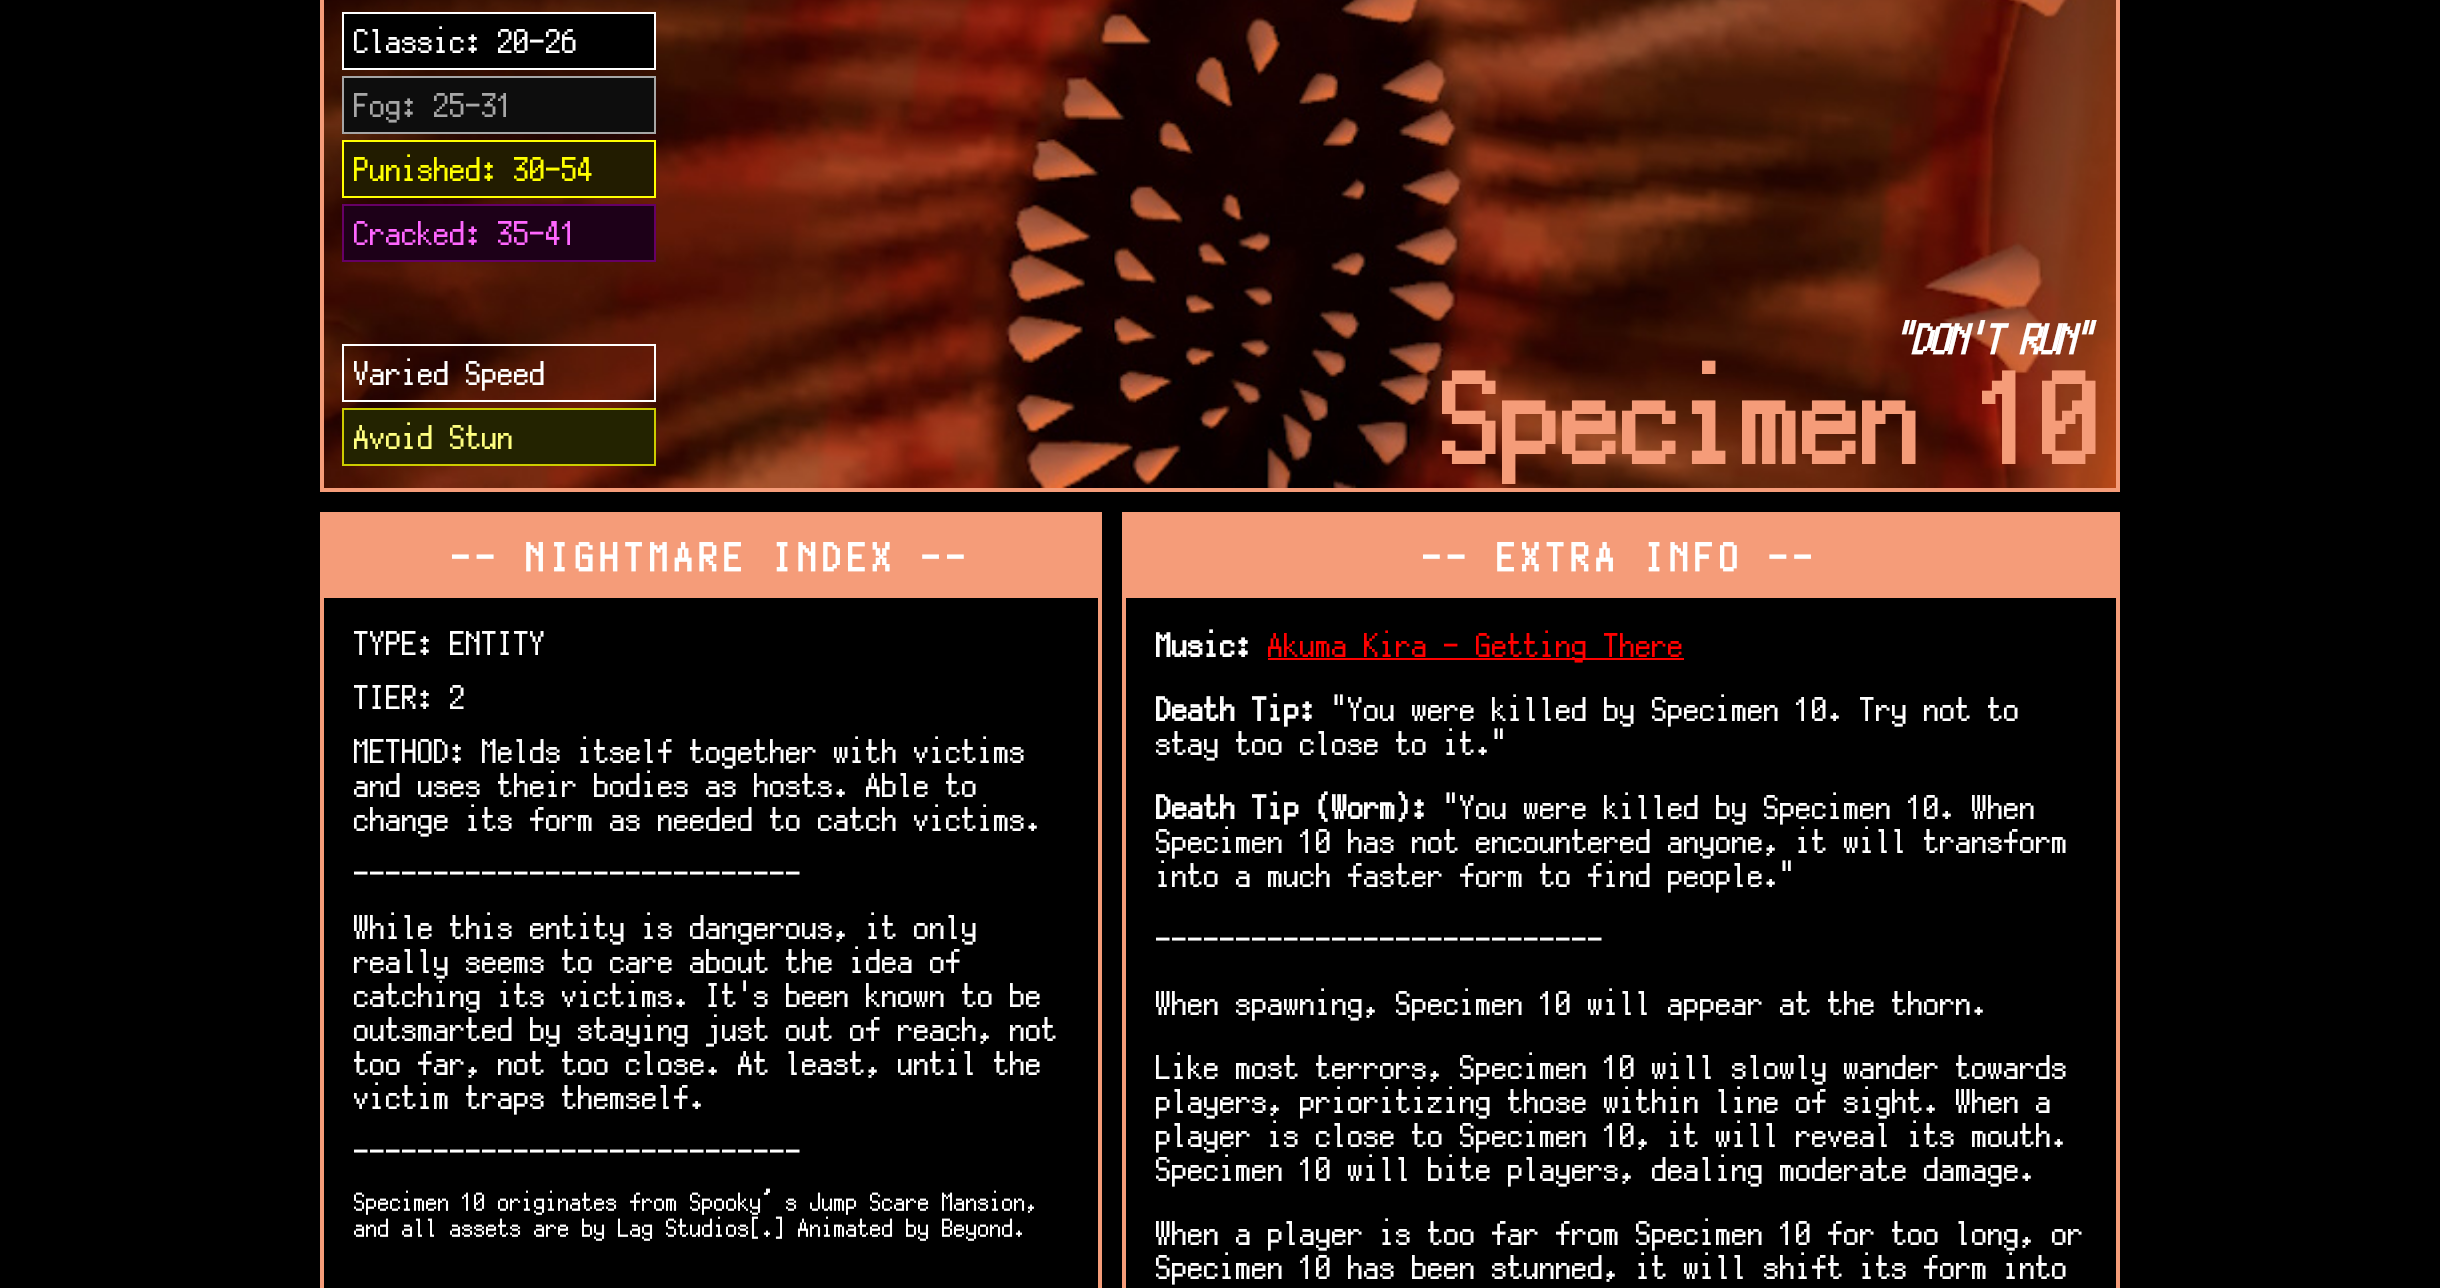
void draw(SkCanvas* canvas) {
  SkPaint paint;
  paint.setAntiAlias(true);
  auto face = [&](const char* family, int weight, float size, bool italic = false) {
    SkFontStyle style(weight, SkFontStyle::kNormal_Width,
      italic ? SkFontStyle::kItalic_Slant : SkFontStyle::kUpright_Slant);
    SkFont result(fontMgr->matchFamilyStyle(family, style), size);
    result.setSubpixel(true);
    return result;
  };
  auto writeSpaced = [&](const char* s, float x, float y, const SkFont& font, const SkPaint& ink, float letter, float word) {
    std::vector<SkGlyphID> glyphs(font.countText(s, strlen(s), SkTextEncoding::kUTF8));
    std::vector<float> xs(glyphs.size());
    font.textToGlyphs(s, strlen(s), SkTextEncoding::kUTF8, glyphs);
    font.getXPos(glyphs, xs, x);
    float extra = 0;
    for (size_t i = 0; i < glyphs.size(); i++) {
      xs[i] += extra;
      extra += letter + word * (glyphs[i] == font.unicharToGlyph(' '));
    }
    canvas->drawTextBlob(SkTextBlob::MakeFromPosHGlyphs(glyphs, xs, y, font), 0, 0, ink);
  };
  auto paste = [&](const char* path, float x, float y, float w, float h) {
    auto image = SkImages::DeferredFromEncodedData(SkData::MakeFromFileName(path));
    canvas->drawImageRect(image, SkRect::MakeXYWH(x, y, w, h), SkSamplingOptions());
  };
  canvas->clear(0xff000000);
  paint.setStroke(true);
  paint.setStrokeWidth(4);
  paint.setColor(0xfff59c79);
  canvas->drawRect(SkRect::MakeXYWH(322, -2, 1796, 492), paint);
  paste("img/1.png", 324, 0, 1792, 488);
  paint.setStroke(false);
  paint.setColor(0xff000000);
  canvas->drawRect(SkRect::MakeXYWH(343, 13, 312, 56), paint);
  paint.setStroke(true);
  paint.setStrokeWidth(2);
  paint.setColor(0xffffffff);
  canvas->drawRect(SkRect::MakeXYWH(343, 13, 312, 56), paint);
  paint.setStroke(false);
  paint.setColor(0xff0d0d0d);
  canvas->drawRect(SkRect::MakeXYWH(343, 77, 312, 56), paint);
  paint.setStroke(true);
  paint.setColor(0xffa6a6a6);
  canvas->drawRect(SkRect::MakeXYWH(343, 77, 312, 56), paint);
  paint.setStroke(false);
  paint.setColor(0xff221c00);
  canvas->drawRect(SkRect::MakeXYWH(343, 141, 312, 56), paint);
  paint.setStroke(true);
  paint.setColor(0xffffff00);
  canvas->drawRect(SkRect::MakeXYWH(343, 141, 312, 56), paint);
  paint.setStroke(false);
  paint.setColor(0xff1d0018);
  canvas->drawRect(SkRect::MakeXYWH(343, 205, 312, 56), paint);
  paint.setStroke(true);
  paint.setColor(0xff660066);
  canvas->drawRect(SkRect::MakeXYWH(343, 205, 312, 56), paint);
  paint.setColor(0xffffffff);
  canvas->drawRect(SkRect::MakeXYWH(343, 345, 312, 56), paint);
  paint.setStroke(false);
  paint.setColor(0xff232300);
  canvas->drawRect(SkRect::MakeXYWH(343, 409, 312, 56), paint);
  paint.setStroke(true);
  paint.setColor(0xffcccc00);
  canvas->drawRect(SkRect::MakeXYWH(343, 409, 312, 56), paint);
  paint.setStrokeWidth(4);
  paint.setColor(0xfff59c79);
  canvas->drawRect(SkRect::MakeXYWH(322, 514, 778, 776), paint);
  paint.setStroke(false);
  canvas->drawRect(SkRect::MakeXYWH(324, 516, 774, 82), paint);
  paint.setStroke(true);
  canvas->drawRect(SkRect::MakeXYWH(1124, 514, 994, 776), paint);
  paint.setStroke(false);
  canvas->drawRect(SkRect::MakeXYWH(1126, 516, 990, 82), paint);
  paint.setColor(0xffff0000);
  canvas->drawRect(SkRect::MakeXYWH(1268, 658, 416, 2), paint);
  auto f0 = face("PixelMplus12", 400, 32);
  paint.setColor(0xffffffff);
  canvas->drawString("Classic: 20-26", 354, 52, f0, paint);
  paint.setColor(0xffa6a6a6);
  canvas->drawString("Fog: 25-31", 354, 116, f0, paint);
  paint.setColor(0xffffff00);
  canvas->drawString("Punished: 30-54", 354, 180, f0, paint);
  paint.setColor(0xffff66ff);
  canvas->drawString("Cracked: 35-41", 354, 244, f0, paint);
  paint.setColor(0xffffffff);
  canvas->drawString("Varied Speed", 354, 384, f0, paint);
  paint.setColor(0xffffff80);
  canvas->drawString("Avoid Stun", 354, 448, f0, paint);
  auto f1 = face("PixelMplus12", 700, 40, true);
  paint.setColor(0xffffffff);
  writeSpaced("\"DON'T RUN\"", 1894, 353, f1, paint, -2, 0);
  auto f2 = face("PixelMplus12", 700, 120);
  paint.setColor(0xfff59c79);
  canvas->drawString("Specimen 10", 1442, 460, f2, paint);
  auto f3 = face("PixelMplus12", 700, 37.5f);
  paint.setColor(0xffffffff);
  writeSpaced("-- NIGHTMARE INDEX --", 452, 570, f3, paint, 6, 0);
  {
    const struct { const char* s; float x, y; } items[] = {
      {"TYPE: ENTITY", 354, 654},
      {"TIER: 2", 354, 708},
      {"METHOD: Melds itself together with victims", 354, 762},
      {"and uses their bodies as hosts. Able to", 354, 796},
      {"change its form as needed to catch victims.", 354, 830},
      {"----------------------------", 354, 884},
      {"While this entity is dangerous, it only", 354, 938},
      {"really seems to care about the idea of", 354, 972},
      {"catching its victims. It's been known to be", 354, 1006},
      {"outsmarted by staying just out of reach, not", 354, 1040},
      {"too far, not too close. At least, until the", 354, 1074},
      {"victim traps themself.", 354, 1108},
      {"----------------------------", 354, 1162},
    };
    for (auto [s, x, y] : items) {
      canvas->drawString(s, x, y, f0, paint);
    }
  }
  auto f4 = face("PixelMplus12", 400, 24);
  canvas->drawString("Specimen 10 originates from Spooky’s Jump Scare Mansion,", 354, 1210, f4, paint);
  canvas->drawString("and all assets are by Lag Studios[.] Animated by Beyond.", 354, 1236, f4, paint);
  writeSpaced("-- EXTRA INFO --", 1423, 570, f3, paint, 6, 0);
  auto f5 = face("PixelMplus12", 700, 32);
  canvas->drawString("Music:", 1156, 656, f5, paint);
  paint.setColor(0xffff0000);
  canvas->drawString("Akuma Kira - Getting There", 1268, 656, f0, paint);
  paint.setColor(0xffffffff);
  canvas->drawString("Death Tip:", 1156, 720, f5, paint);
  canvas->drawString("\"You were killed by Specimen 10. Try not to", 1332, 720, f0, paint);
  canvas->drawString("stay too close to it.\"", 1156, 754, f0, paint);
  canvas->drawString("Death Tip (Worm):", 1156, 818, f5, paint);
  {
    const struct { const char* s; float x, y; } items[] = {
      {"\"You were killed by Specimen 10. When", 1444, 818},
      {"Specimen 10 has not encountered anyone, it will transform", 1156, 852},
      {"into a much faster form to find people.\"", 1156, 886},
      {"----------------------------", 1156, 950},
      {"When spawning, Specimen 10 will appear at the thorn.", 1156, 1014},
      {"Like most terrors, Specimen 10 will slowly wander towards", 1156, 1078},
      {"players, prioritizing those within line of sight. When a", 1156, 1112},
      {"player is close to Specimen 10, it will reveal its mouth.", 1156, 1146},
      {"Specimen 10 will bite players, dealing moderate damage.", 1156, 1180},
      {"When a player is too far from Specimen 10 for too long, or", 1156, 1244},
      {"Specimen 10 has been stunned, it will shift its form into", 1156, 1278},
    };
    for (auto [s, x, y] : items) {
      canvas->drawString(s, x, y, f0, paint);
    }
  }
}
